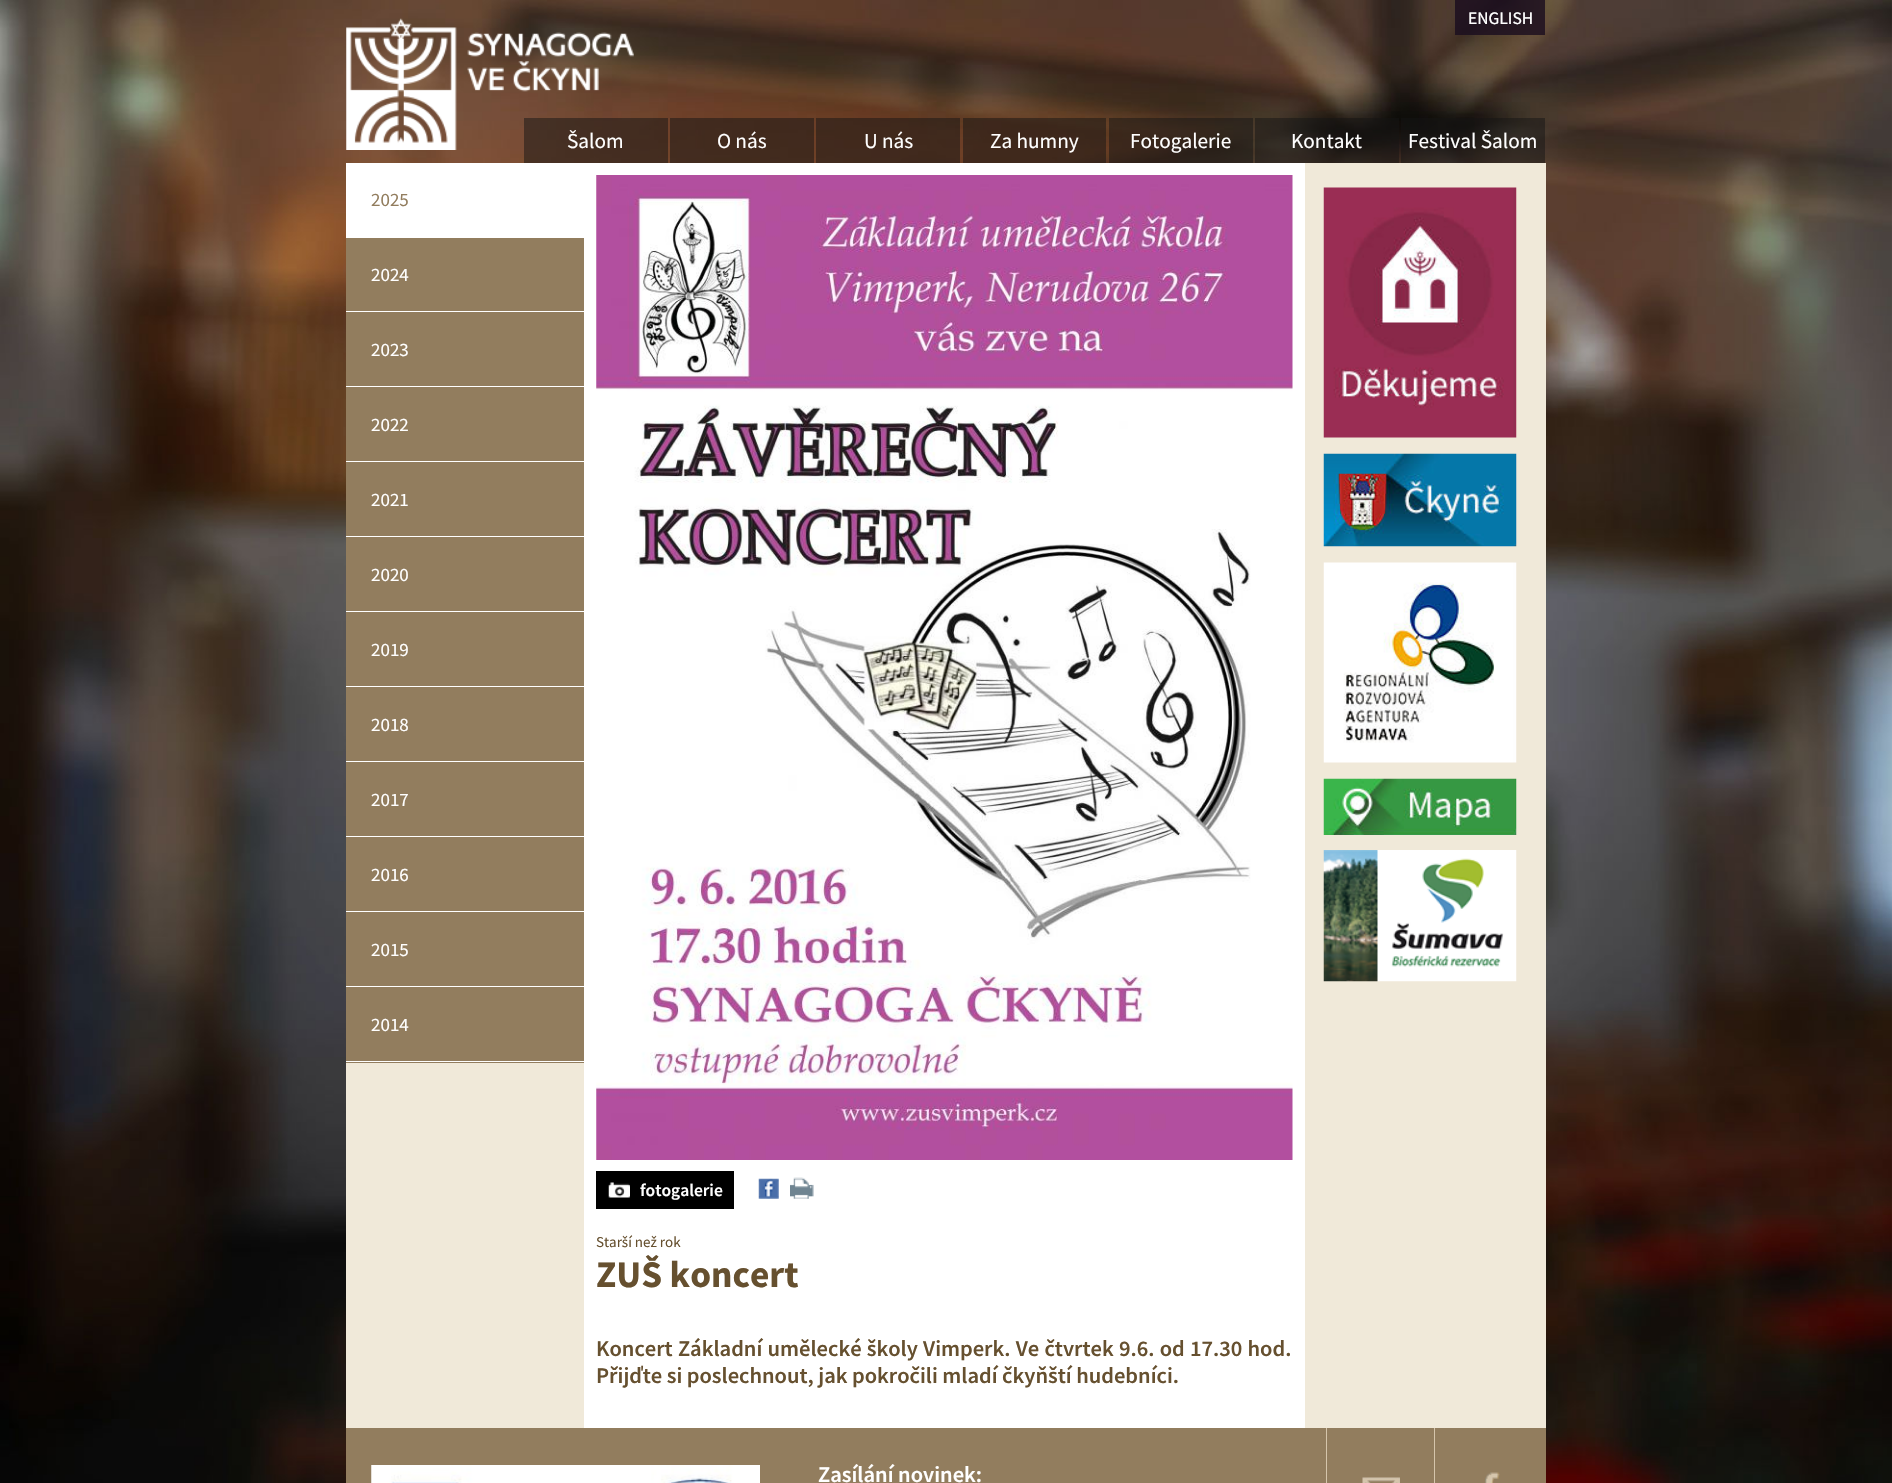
void draw(SkCanvas* canvas) {
  SkPaint paint;
  paint.setAntiAlias(true);
  auto face = [&](const char* family, int weight, float size, bool italic = false) {
    SkFontStyle style(weight, SkFontStyle::kNormal_Width,
      italic ? SkFontStyle::kItalic_Slant : SkFontStyle::kUpright_Slant);
    SkFont result(fontMgr->matchFamilyStyle(family, style), size);
    result.setSubpixel(true);
    return result;
  };
  auto writeSpaced = [&](const char* s, float x, float y, const SkFont& font, const SkPaint& ink, float letter, float word) {
    std::vector<SkGlyphID> glyphs(font.countText(s, strlen(s), SkTextEncoding::kUTF8));
    std::vector<float> xs(glyphs.size());
    font.textToGlyphs(s, strlen(s), SkTextEncoding::kUTF8, glyphs);
    font.getXPos(glyphs, xs, x);
    float extra = 0;
    for (size_t i = 0; i < glyphs.size(); i++) {
      xs[i] += extra;
      extra += letter + word * (glyphs[i] == font.unicharToGlyph(' '));
    }
    canvas->drawTextBlob(SkTextBlob::MakeFromPosHGlyphs(glyphs, xs, y, font), 0, 0, ink);
  };
  auto paste = [&](const char* path, float x, float y, float w, float h) {
    auto image = SkImages::DeferredFromEncodedData(SkData::MakeFromFileName(path));
    canvas->drawImageRect(image, SkRect::MakeXYWH(x, y, w, h), SkSamplingOptions());
  };
  canvas->clear(0xffffffff);
  paste("img/1.png", 1891, 0, 1, 1483);
  paste("img/2.png", 0, 0, 1892, 1483);
  {
    const struct { float x, y, w, h; SkColor color; } items[] = {
      {1455, 0, 90, 35, 0x8c180b1d},
      {524, 118, 144, 45, 0x80141414},
      {670, 118, 144, 45, 0x80141414},
      {816, 118, 144, 45, 0x80141414},
      {963, 118, 143, 45, 0x80141414},
      {1109, 118, 144, 45, 0x80141414},
      {1255, 118, 144, 45, 0x80141414},
      {1401, 118, 144, 45, 0x80141414},
      {346, 163, 1200, 1265, 0xfff0e9d9},
      {346, 163, 238, 75, 0xffffffff},
      {346, 238, 238, 825, 0xff927d5e},
      {346, 311, 238, 1, 0xffffffff},
      {346, 386, 238, 1, 0xffffffff},
      {346, 461, 238, 1, 0xffffffff},
      {346, 536, 238, 1, 0xffffffff},
      {346, 611, 238, 1, 0xffffffff},
      {346, 686, 238, 1, 0xffffffff},
      {346, 761, 238, 1, 0xffffffff},
      {346, 836, 238, 1, 0xffffffff},
      {346, 911, 238, 1, 0xffffffff},
      {346, 986, 238, 1, 0xffffffff},
      {346, 1061, 238, 1, 0xffffffff},
      {584, 163, 721, 1265, 0xffffffff},
    };
    for (auto [x, y, w, h, color] : items) {
      paint.setColor(color);
      canvas->drawRect(SkRect::MakeXYWH(x, y, w, h), paint);
    }
  }
  paste("img/4.png", 596, 175, 697, 985);
  paint.setColor(0xff000000);
  canvas->drawRect(SkRect::MakeXYWH(596, 1171, 138, 38), paint);
  paste("img/5.png", 608, 1182, 22, 16);
  paste("img/6.png", 758, 1178, 21, 21);
  paste("img/7.png", 790, 1177, 24, 22);
  paste("img/8.png", 1323, 187, 194, 251);
  paste("img/9.png", 1323, 453, 194, 94);
  paste("img/10.png", 1323, 562, 194, 201);
  paste("img/11.png", 1323, 778, 194, 57);
  paste("img/12.png", 1323, 850, 194, 132);
  paint.setColor(0xff927d5e);
  canvas->drawRect(SkRect::MakeXYWH(346, 1428, 1200, 55), paint);
  paste("img/13.png", 371, 1465, 389, 18);
  paint.setColor(0xffd5c5ac);
  canvas->drawRect(SkRect::MakeXYWH(1326, 1428, 1, 55), paint);
  paste("img/14.png", 1362, 1477, 38, 6);
  canvas->drawRect(SkRect::MakeXYWH(1434, 1428, 1, 55), paint);
  paste("img/15.png", 1485, 1472, 15, 11);
  auto f0 = face("Source Sans Pro", 400, 17.5f);
  paint.setColor(0xffffffff);
  canvas->drawString("ENGLISH", 1468, 24, f0, paint);
  paint.setColor(0x8c180b1d);
  canvas->drawRect(SkRect::MakeXYWH(1455, 0, 90, 35), paint);
  paint.setColor(0xffffffff);
  canvas->drawString("ENGLISH", 1468, 24, f0, paint);
  auto f1 = face("Source Sans Pro", 400, 21.25f);
  canvas->drawString("Šalom", 567, 148, f1, paint);
  paste("img/3.png", 346, 18, 288, 132);
  {
    const struct { const char* s; float x, y; } items[] = {
      {"O nás", 717, 148},
      {"U nás", 864, 148},
      {"Za humny", 990, 148},
      {"Fotogalerie", 1130, 148},
      {"Kontakt", 1291, 148},
      {"Festival Šalom", 1408, 148},
    };
    for (auto [s, x, y] : items) {
      canvas->drawString(s, x, y, f1, paint);
    }
  }
  auto f2 = face("Source Sans Pro", 400, 19);
  paint.setColor(0xff927d5e);
  canvas->drawString("2025", 371, 206, f2, paint);
  paint.setColor(0xffffffff);
  {
    const struct { const char* s; float x, y; } items[] = {
      {"2024", 371, 281},
      {"2023", 371, 356},
      {"2022", 371, 431},
      {"2021", 371, 506},
      {"2020", 371, 581},
      {"2019", 371, 656},
      {"2018", 371, 731},
      {"2017", 371, 806},
      {"2016", 371, 881},
      {"2015", 371, 956},
      {"2014", 371, 1031},
    };
    for (auto [s, x, y] : items) {
      canvas->drawString(s, x, y, f2, paint);
    }
  }
  auto f3 = face("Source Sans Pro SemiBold", 600, 17.5f);
  canvas->drawString("fotogalerie", 640, 1196, f3, paint);
  auto f4 = face("Source Sans Pro", 400, 15);
  paint.setColor(0xff66502f);
  canvas->drawString("Starší než rok", 596, 1247, f4, paint);
  auto f5 = face("Source Sans Pro", 700, 37.5f);
  canvas->drawString("ZUŠ koncert", 596, 1287, f5, paint);
  auto f6 = face("Source Sans Pro SemiBold", 600, 22.5f);
  writeSpaced("Koncert Základní umělecké školy Vimperk. Ve čtvrtek 9.6. od 17.30 hod.", 596, 1356, f6, paint, 0, 0.75f);
  canvas->drawString("Přijďte si poslechnout, jak pokročili mladí čkyňští hudebníci.", 596, 1383, f6, paint);
  paint.setColor(0xffffffff);
  canvas->drawString("Zasílání novinek:", 818, 1482, f6, paint);
}
